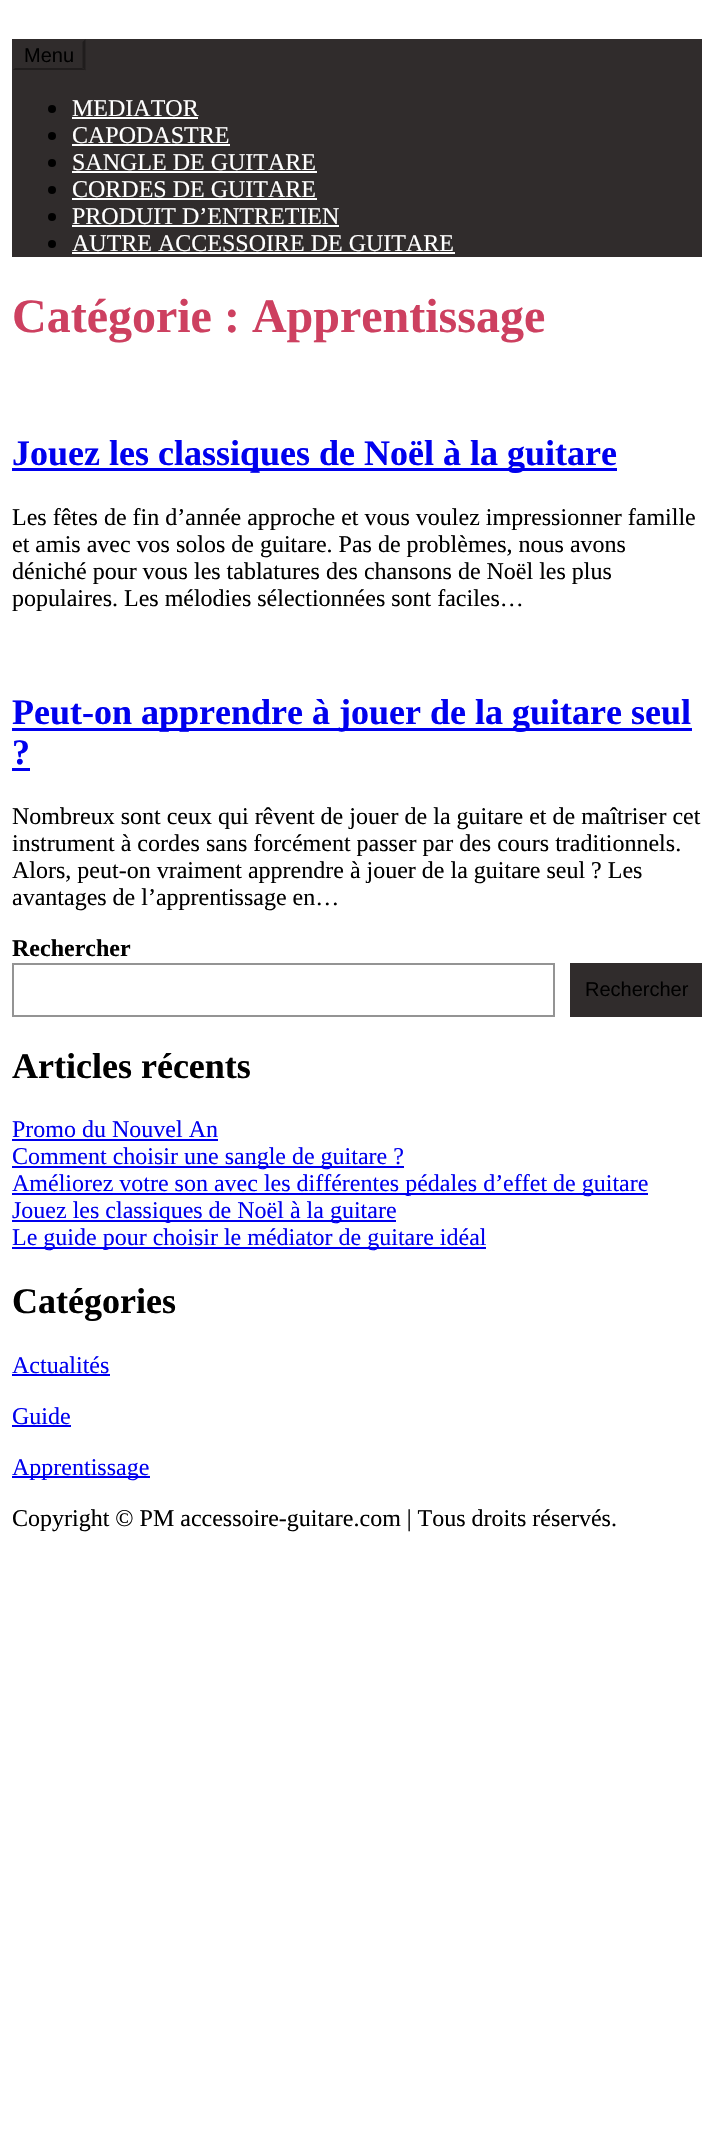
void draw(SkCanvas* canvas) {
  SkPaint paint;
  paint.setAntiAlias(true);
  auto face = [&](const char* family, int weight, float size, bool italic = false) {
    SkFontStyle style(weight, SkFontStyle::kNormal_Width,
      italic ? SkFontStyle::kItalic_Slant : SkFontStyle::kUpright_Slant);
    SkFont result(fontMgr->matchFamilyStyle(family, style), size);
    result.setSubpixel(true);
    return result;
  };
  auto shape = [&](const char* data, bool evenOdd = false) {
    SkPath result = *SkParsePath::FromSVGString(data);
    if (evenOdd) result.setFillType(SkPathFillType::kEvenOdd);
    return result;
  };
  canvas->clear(0xffffffff);
  paint.setColor(0xff302c2c);
  canvas->drawRect(SkRect::MakeXYWH(12, 39, 690, 218), paint);
  paint.setColor(0xff201d1d);
  canvas->drawPath(shape("M85.5 39V70.5L82.5 67.5V42Z"), paint);
  canvas->drawPath(shape("M86 70H12L15 68H82Z"), paint);
  paint.setColor(0xff302c2c);
  canvas->drawPath(shape("M12 70.5V39L15 42V67.5Z"), paint);
  paint.setColor(0xff000000);
  canvas->drawCircle(52, 109, 4, paint);
  paint.setColor(0xffffffff);
  canvas->drawRect(SkRect::MakeXYWH(72, 117, 126, 2), paint);
  paint.setColor(0xff000000);
  canvas->drawCircle(52, 136, 4, paint);
  paint.setColor(0xffffffff);
  canvas->drawRect(SkRect::MakeXYWH(72, 144, 158, 2), paint);
  paint.setColor(0xff000000);
  canvas->drawCircle(52, 163, 4, paint);
  paint.setColor(0xffffffff);
  canvas->drawRect(SkRect::MakeXYWH(72, 171, 245, 2), paint);
  paint.setColor(0xff000000);
  canvas->drawCircle(52, 190, 4, paint);
  paint.setColor(0xffffffff);
  canvas->drawRect(SkRect::MakeXYWH(72, 198, 245, 2), paint);
  paint.setColor(0xff000000);
  canvas->drawCircle(52, 217, 4, paint);
  paint.setColor(0xffffffff);
  canvas->drawRect(SkRect::MakeXYWH(72, 225, 267, 2), paint);
  paint.setColor(0xff000000);
  canvas->drawCircle(52, 244, 4, paint);
  {
    const struct { float x, y, w, h; SkColor color; } items[] = {
      {72, 252, 383, 2, 0xffffffff},
      {12, 468, 605, 3, 0xff0000ee},
      {12, 728, 680, 3, 0xff0000ee},
      {12, 768, 18, 3, 0xff0000ee},
    };
    for (auto [x, y, w, h, color] : items) {
      paint.setColor(color);
      canvas->drawRect(SkRect::MakeXYWH(x, y, w, h), paint);
    }
  }
  paint.setStroke(true);
  paint.setStrokeWidth(2);
  paint.setColor(0xff949494);
  canvas->drawRect(SkRect::MakeXYWH(13, 964, 541, 52), paint);
  paint.setStroke(false);
  {
    const struct { float x, y, w, h; SkColor color; } items[] = {
      {570, 963, 132, 54, 0xff302c2c},
      {12, 1139, 206, 2, 0xff0000ee},
      {12, 1166, 392, 2, 0xff0000ee},
      {12, 1193, 636, 2, 0xff0000ee},
      {12, 1220, 384, 2, 0xff0000ee},
      {12, 1247, 474, 2, 0xff0000ee},
      {12, 1374, 98, 2, 0xff0000ee},
      {12, 1425, 59, 2, 0xff0000ee},
      {12, 1476, 138, 2, 0xff0000ee},
    };
    for (auto [x, y, w, h, color] : items) {
      paint.setColor(color);
      canvas->drawRect(SkRect::MakeXYWH(x, y, w, h), paint);
    }
  }
  auto f0 = face("Liberation Sans", 400, 20);
  paint.setColor(0xff000000);
  canvas->drawString("Menu", 24, 62, f0, paint);
  auto f1 = face("Liberation Serif", 400, 24);
  paint.setColor(0xffffffff);
  {
    const struct { const char* s; float x, y; } items[] = {
      {"MEDIATOR", 72, 116},
      {"CAPODASTRE", 72, 143},
      {"SANGLE DE GUITARE", 72, 170},
      {"CORDES DE GUITARE", 72, 197},
      {"PRODUIT D’ENTRETIEN", 72, 224},
      {"AUTRE ACCESSOIRE DE GUITARE", 72, 251},
    };
    for (auto [s, x, y] : items) {
      canvas->drawString(s, x, y, f1, paint);
    }
  }
  auto f2 = face("Liberation Serif", 700, 48);
  paint.setColor(0xffcd4060);
  canvas->drawString("Catégorie : Apprentissage", 12, 332, f2, paint);
  auto f3 = face("Liberation Serif", 700, 36);
  paint.setColor(0xff0000ee);
  canvas->drawString("Jouez les classiques de Noël à la guitare", 12, 465, f3, paint);
  paint.setColor(0xff000000);
  {
    const struct { const char* s; float x, y; } items[] = {
      {"Les fêtes de fin d’année approche et vous voulez impressionner famille", 12, 525},
      {"et amis avec vos solos de guitare. Pas de problèmes, nous avons", 12, 552},
      {"déniché pour vous les tablatures des chansons de Noël les plus", 12, 579},
      {"populaires. Les mélodies sélectionnées sont faciles…", 12, 606},
    };
    for (auto [s, x, y] : items) {
      canvas->drawString(s, x, y, f1, paint);
    }
  }
  paint.setColor(0xff0000ee);
  canvas->drawString("Peut-on apprendre à jouer de la guitare seul", 12, 724, f3, paint);
  canvas->drawString("?", 12, 764, f3, paint);
  paint.setColor(0xff000000);
  {
    const struct { const char* s; float x, y; } items[] = {
      {"Nombreux sont ceux qui rêvent de jouer de la guitare et de maîtriser cet", 12, 824},
      {"instrument à cordes sans forcément passer par des cours traditionnels.", 12, 851},
      {"Alors, peut-on vraiment apprendre à jouer de la guitare seul ? Les", 12, 878},
      {"avantages de l’apprentissage en…", 12, 905},
    };
    for (auto [s, x, y] : items) {
      canvas->drawString(s, x, y, f1, paint);
    }
  }
  auto f4 = face("Liberation Serif", 700, 24);
  canvas->drawString("Rechercher", 12, 956, f4, paint);
  canvas->drawString("Rechercher", 585, 996, f0, paint);
  canvas->drawString("Articles récents", 12, 1078, f3, paint);
  paint.setColor(0xff0000ee);
  {
    const struct { const char* s; float x, y; } items[] = {
      {"Promo du Nouvel An", 12, 1137},
      {"Comment choisir une sangle de guitare ?", 12, 1164},
      {"Améliorez votre son avec les différentes pédales d’effet de guitare", 12, 1191},
      {"Jouez les classiques de Noël à la guitare", 12, 1218},
      {"Le guide pour choisir le médiator de guitare idéal", 12, 1245},
    };
    for (auto [s, x, y] : items) {
      canvas->drawString(s, x, y, f1, paint);
    }
  }
  paint.setColor(0xff000000);
  canvas->drawString("Catégories", 12, 1313, f3, paint);
  paint.setColor(0xff0000ee);
  {
    const struct { const char* s; float x, y; } items[] = {
      {"Actualités", 12, 1373},
      {"Guide", 12, 1424},
      {"Apprentissage", 12, 1475},
    };
    for (auto [s, x, y] : items) {
      canvas->drawString(s, x, y, f1, paint);
    }
  }
  paint.setColor(0xff000000);
  canvas->drawString("Copyright © PM accessoire-guitare.com | Tous droits réservés.", 12, 1526, f1, paint);
}
